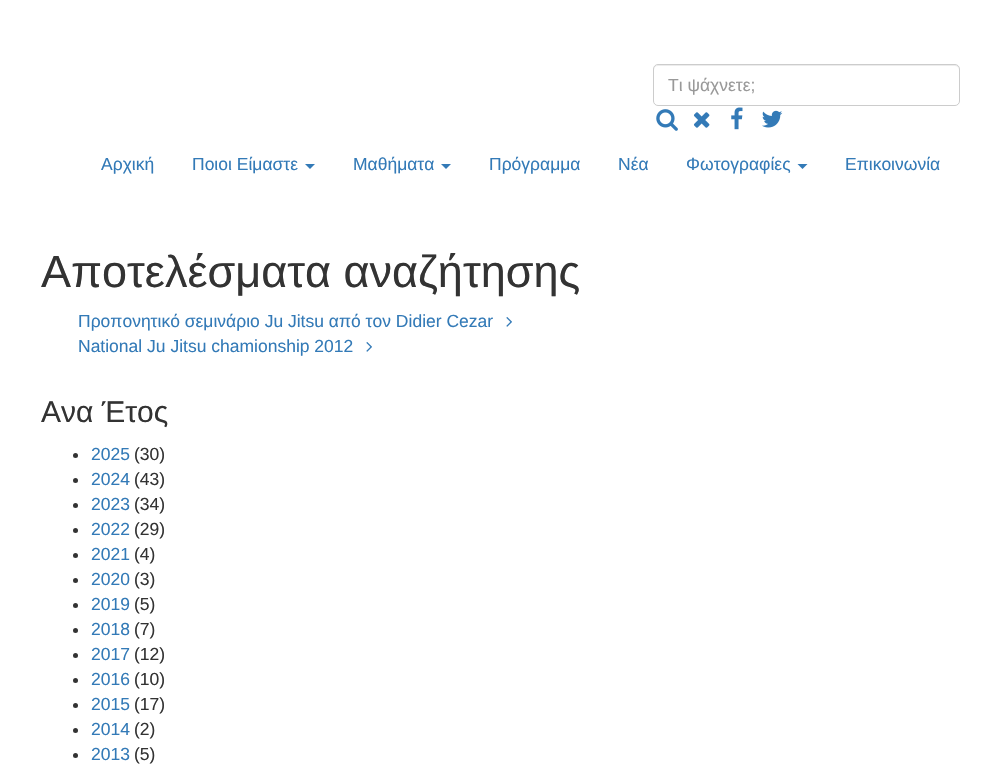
void draw(SkCanvas* canvas) {
  SkPaint paint;
  paint.setAntiAlias(true);
  auto face = [&](const char* family, int weight, float size, bool italic = false) {
    SkFontStyle style(weight, SkFontStyle::kNormal_Width,
      italic ? SkFontStyle::kItalic_Slant : SkFontStyle::kUpright_Slant);
    SkFont result(fontMgr->matchFamilyStyle(family, style), size);
    result.setSubpixel(true);
    return result;
  };
  auto paste = [&](const char* path, float x, float y, float w, float h) {
    auto image = SkImages::DeferredFromEncodedData(SkData::MakeFromFileName(path));
    canvas->drawImageRect(image, SkRect::MakeXYWH(x, y, w, h), SkSamplingOptions());
  };
  auto shape = [&](const char* data, bool evenOdd = false) {
    SkPath result = *SkParsePath::FromSVGString(data);
    if (evenOdd) result.setFillType(SkPathFillType::kEvenOdd);
    return result;
  };
  canvas->clear(0xffffffff);
  paint.setColor(0xffececec);
  canvas->drawPath(shape("M658 66H955C957 66 959 68 959 70C959 67 958 65 955 65H658L655 66C654 67 654 69 654 70C654 68 655 66 658 66Z"), paint);
  paint.setStroke(true);
  paint.setStrokeWidth(1);
  paint.setColor(0xffcccccc);
  canvas->drawRoundRect(SkRect::MakeXYWH(653.5f, 64.5f, 306, 41), 4.5f, 4.5f, paint);
  paste("img/1.png", 656, 109, 22, 22);
  paste("img/2.png", 693, 112, 17, 16);
  paste("img/3.png", 731, 107, 12, 23);
  paste("img/4.png", 762, 110, 21, 18);
  paint.setStroke(false);
  paint.setColor(0xff337ab7);
  canvas->drawPath(shape("M305 164H315L310 169Z"), paint);
  canvas->drawPath(shape("M441 164H451L446 169Z"), paint);
  canvas->drawPath(shape("M797.5 164H807.5L802.5 169Z"), paint);
  paste("img/5.png", 506, 317, 6, 10);
  paste("img/5.png", 366, 342, 6, 10);
  paint.setColor(0xff333333);
  canvas->drawCircle(75.5f, 455.5f, 2.5f, paint);
  canvas->drawCircle(75.5f, 480.5f, 2.5f, paint);
  canvas->drawCircle(75.5f, 505.5f, 2.5f, paint);
  canvas->drawCircle(75.5f, 530.5f, 2.5f, paint);
  canvas->drawCircle(75.5f, 555.5f, 2.5f, paint);
  canvas->drawCircle(75.5f, 580.5f, 2.5f, paint);
  canvas->drawCircle(75.5f, 605.5f, 2.5f, paint);
  canvas->drawCircle(75.5f, 630.5f, 2.5f, paint);
  canvas->drawCircle(75.5f, 655.5f, 2.5f, paint);
  canvas->drawCircle(75.5f, 680.5f, 2.5f, paint);
  canvas->drawCircle(75.5f, 705.5f, 2.5f, paint);
  canvas->drawCircle(75.5f, 730.5f, 2.5f, paint);
  canvas->drawCircle(75.5f, 755.5f, 2.5f, paint);
  auto f0 = face("Liberation Sans", 400, 17.5f);
  paint.setColor(0xff999999);
  canvas->drawString("Τι ψάχνετε;", 668, 91, f0, paint);
  paint.setColor(0xff337ab7);
  {
    const struct { const char* s; float x, y; } items[] = {
      {"Αρχική", 101, 170},
      {"Ποιοι Είμαστε", 192, 170},
      {"Μαθήματα", 353, 170},
      {"Πρόγραμμα", 489, 170},
      {"Νέα", 618, 170},
      {"Φωτογραφίες", 686, 170},
      {"Επικοινωνία", 845, 170},
    };
    for (auto [s, x, y] : items) {
      canvas->drawString(s, x, y, f0, paint);
    }
  }
  auto f1 = face("Liberation Sans", 400, 45);
  paint.setColor(0xff333333);
  canvas->drawString("Αποτελέσματα αναζήτησης", 41, 287, f1, paint);
  paint.setColor(0xff337ab7);
  canvas->drawString("Προπονητικό σεμινάριο Ju Jitsu από τον Didier Cezar", 78, 327, f0, paint);
  canvas->drawString("National Ju Jitsu chamionship 2012", 78, 352, f0, paint);
  auto f2 = face("Liberation Sans", 400, 30);
  paint.setColor(0xff333333);
  canvas->drawString("Ανα Έτος", 41, 422, f2, paint);
  paint.setColor(0xff337ab7);
  canvas->drawString("2025", 91, 460, f0, paint);
  paint.setColor(0xff333333);
  canvas->drawString("(30)", 134, 460, f0, paint);
  paint.setColor(0xff337ab7);
  canvas->drawString("2024", 91, 485, f0, paint);
  paint.setColor(0xff333333);
  canvas->drawString("(43)", 134, 485, f0, paint);
  paint.setColor(0xff337ab7);
  canvas->drawString("2023", 91, 510, f0, paint);
  paint.setColor(0xff333333);
  canvas->drawString("(34)", 134, 510, f0, paint);
  paint.setColor(0xff337ab7);
  canvas->drawString("2022", 91, 535, f0, paint);
  paint.setColor(0xff333333);
  canvas->drawString("(29)", 134, 535, f0, paint);
  paint.setColor(0xff337ab7);
  canvas->drawString("2021", 91, 560, f0, paint);
  paint.setColor(0xff333333);
  canvas->drawString("(4)", 134, 560, f0, paint);
  paint.setColor(0xff337ab7);
  canvas->drawString("2020", 91, 585, f0, paint);
  paint.setColor(0xff333333);
  canvas->drawString("(3)", 134, 585, f0, paint);
  paint.setColor(0xff337ab7);
  canvas->drawString("2019", 91, 610, f0, paint);
  paint.setColor(0xff333333);
  canvas->drawString("(5)", 134, 610, f0, paint);
  paint.setColor(0xff337ab7);
  canvas->drawString("2018", 91, 635, f0, paint);
  paint.setColor(0xff333333);
  canvas->drawString("(7)", 134, 635, f0, paint);
  paint.setColor(0xff337ab7);
  canvas->drawString("2017", 91, 660, f0, paint);
  paint.setColor(0xff333333);
  canvas->drawString("(12)", 134, 660, f0, paint);
  paint.setColor(0xff337ab7);
  canvas->drawString("2016", 91, 685, f0, paint);
  paint.setColor(0xff333333);
  canvas->drawString("(10)", 134, 685, f0, paint);
  paint.setColor(0xff337ab7);
  canvas->drawString("2015", 91, 710, f0, paint);
  paint.setColor(0xff333333);
  canvas->drawString("(17)", 134, 710, f0, paint);
  paint.setColor(0xff337ab7);
  canvas->drawString("2014", 91, 735, f0, paint);
  paint.setColor(0xff333333);
  canvas->drawString("(2)", 134, 735, f0, paint);
  paint.setColor(0xff337ab7);
  canvas->drawString("2013", 91, 760, f0, paint);
  paint.setColor(0xff333333);
  canvas->drawString("(5)", 134, 760, f0, paint);
}
